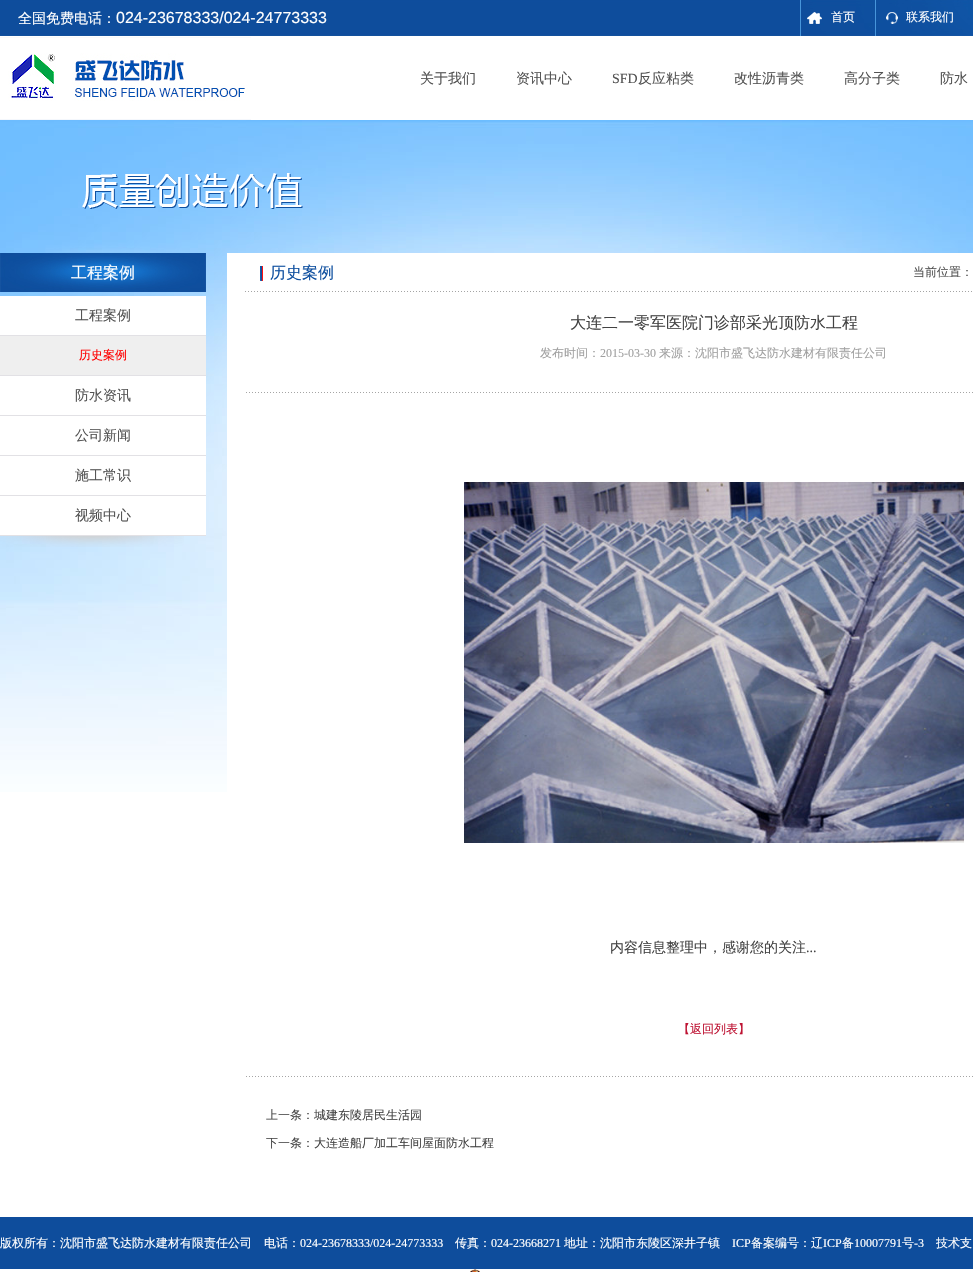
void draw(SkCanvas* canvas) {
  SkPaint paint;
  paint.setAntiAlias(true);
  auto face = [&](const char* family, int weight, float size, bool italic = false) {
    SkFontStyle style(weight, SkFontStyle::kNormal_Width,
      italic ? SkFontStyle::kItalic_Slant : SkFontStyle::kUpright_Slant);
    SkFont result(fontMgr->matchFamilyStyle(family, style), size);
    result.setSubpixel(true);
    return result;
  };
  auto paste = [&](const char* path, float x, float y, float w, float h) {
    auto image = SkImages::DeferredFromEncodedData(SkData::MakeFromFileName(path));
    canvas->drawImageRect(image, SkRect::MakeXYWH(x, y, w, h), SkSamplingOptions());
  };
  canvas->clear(0xffffffff);
  paste("img/1.png", 0, 0, 973, 36);
  paint.setColor(0xff4795da);
  canvas->drawRect(SkRect::MakeXYWH(800, 0, 1, 36), paint);
  paste("img/2.png", 807, 12, 15, 12);
  canvas->drawRect(SkRect::MakeXYWH(875, 0, 1, 36), paint);
  paste("img/3.png", 886, 12, 12, 12);
  paste("img/4.png", 0, 37, 251, 83);
  paste("img/5.png", 0, 120, 973, 672);
  paste("img/6.png", 45, 173, 258, 80);
  paste("img/7.png", 0, 253, 206, 39);
  paste("img/8.png", 0, 536, 184, 11);
  {
    const struct { float x, y, w, h; SkColor color; } items[] = {
      {0, 296, 206, 39, 0xffffffff},
      {0, 335, 206, 1, 0xffe2e1e5},
      {0, 336, 206, 39, 0xffefefef},
      {0, 375, 206, 1, 0xffe2e1e5},
      {0, 376, 206, 39, 0xffffffff},
      {0, 415, 206, 1, 0xffe2e1e5},
      {0, 416, 206, 39, 0xffffffff},
      {0, 455, 206, 1, 0xffe2e1e5},
      {0, 456, 206, 39, 0xffffffff},
      {0, 495, 206, 1, 0xffe2e1e5},
      {0, 496, 206, 39, 0xffffffff},
      {0, 535, 206, 1, 0xffe2e1e5},
      {227, 253, 746, 539, 0xffffffff},
    };
    for (auto [x, y, w, h, color] : items) {
      paint.setColor(color);
      canvas->drawRect(SkRect::MakeXYWH(x, y, w, h), paint);
    }
  }
  paste("img/9.png", 245, 266, 727, 26);
  paste("img/10.png", 246, 392, 727, 1);
  paste("img/11.png", 464, 482, 500, 361);
  paste("img/10.png", 246, 1076, 727, 1);
  paint.setColor(0xff0e4d9c);
  canvas->drawRect(SkRect::MakeXYWH(0, 1217, 973, 52), paint);
  paste("img/12.png", 470, 1269, 10, 3);
  auto f0 = face("WenQuanYi Zen Hei", 500, 14);
  paint.setColor(0xffffffff);
  canvas->drawString("全国免费电话：", 18, 23, f0, paint);
  auto f1 = face("Liberation Sans", 400, 16);
  canvas->drawString("024-23678333/024-24773333", 116, 23, f1, paint);
  auto f2 = face("WenQuanYi Zen Hei", 500, 12);
  canvas->drawString("首页", 831, 21, f2, paint);
  canvas->drawString("联系我们", 906, 21, f2, paint);
  paint.setColor(0xff525252);
  canvas->drawString("关于我们", 420, 83, f0, paint);
  canvas->drawString("资讯中心", 516, 83, f0, paint);
  auto f3 = face("Liberation Serif", 400, 14);
  canvas->drawString("SFD", 612, 83, f3, paint);
  {
    const struct { const char* s; float x, y; } items[] = {
      {"反应粘类", 638, 83},
      {"改性沥青类", 734, 83},
      {"高分子类", 844, 83},
      {"防水", 940, 83},
    };
    for (auto [s, x, y] : items) {
      canvas->drawString(s, x, y, f0, paint);
    }
  }
  auto f4 = face("WenQuanYi Zen Hei", 500, 16);
  paint.setColor(0xffffffff);
  canvas->drawString("工程案例", 71, 278, f4, paint);
  paint.setColor(0xff525252);
  canvas->drawString("工程案例", 75, 320, f0, paint);
  paint.setColor(0xffff0000);
  canvas->drawString("历史案例", 79, 359, f2, paint);
  paint.setColor(0xff525252);
  {
    const struct { const char* s; float x, y; } items[] = {
      {"防水资讯", 75, 400},
      {"公司新闻", 75, 440},
      {"施工常识", 75, 480},
      {"视频中心", 75, 520},
    };
    for (auto [s, x, y] : items) {
      canvas->drawString(s, x, y, f0, paint);
    }
  }
  paint.setColor(0xff0e4f9f);
  canvas->drawString("历史案例", 270, 278, f4, paint);
  paint.setColor(0xff525252);
  canvas->drawString("当前位置：", 913, 276, f2, paint);
  paint.setColor(0xff424242);
  canvas->drawString("大连二一零军医院门诊部采光顶防水工程", 570, 328, f4, paint);
  paint.setColor(0xff9f9f9f);
  canvas->drawString("发布时间：", 540, 357, f2, paint);
  auto f5 = face("Liberation Serif", 400, 12);
  canvas->drawString("2015-03-30", 600, 357, f5, paint);
  canvas->drawString("来源：沈阳市盛飞达防水建材有限责任公司", 659, 357, f2, paint);
  paint.setColor(0xff424242);
  canvas->drawString("内容信息整理中，感谢您的关注", 610, 952, f0, paint);
  canvas->drawString("...", 806, 952, f3, paint);
  paint.setColor(0xffbe1333);
  canvas->drawString("【返回列表】", 678, 1033, f2, paint);
  paint.setColor(0xff484848);
  canvas->drawString("上一条：", 266, 1119, f2, paint);
  paint.setColor(0xff424242);
  canvas->drawString("城建东陵居民生活园", 314, 1119, f2, paint);
  paint.setColor(0xff484848);
  canvas->drawString("下一条：", 266, 1147, f2, paint);
  paint.setColor(0xff424242);
  canvas->drawString("大连造船厂加工车间屋面防水工程", 314, 1147, f2, paint);
  paint.setColor(0xffffffff);
  canvas->drawString("版权所有：沈阳市盛飞达防水建材有限责任公司　电话：", 0, 1247, f2, paint);
  canvas->drawString("024-23678333/024-24773333", 300, 1247, f5, paint);
  canvas->drawString("传真：", 455, 1247, f2, paint);
  canvas->drawString("024-23668271", 491, 1247, f5, paint);
  canvas->drawString("地址：沈阳市东陵区深井子镇", 564, 1247, f2, paint);
  canvas->drawString("ICP", 732, 1247, f5, paint);
  canvas->drawString("备案编号：辽", 751, 1247, f2, paint);
  canvas->drawString("ICP", 823, 1247, f5, paint);
  canvas->drawString("备", 842, 1247, f2, paint);
  canvas->drawString("10007791", 854, 1247, f5, paint);
  canvas->drawString("号", 902, 1247, f2, paint);
  canvas->drawString("-3", 914, 1247, f5, paint);
  canvas->drawString("技术支", 936, 1247, f2, paint);
}
